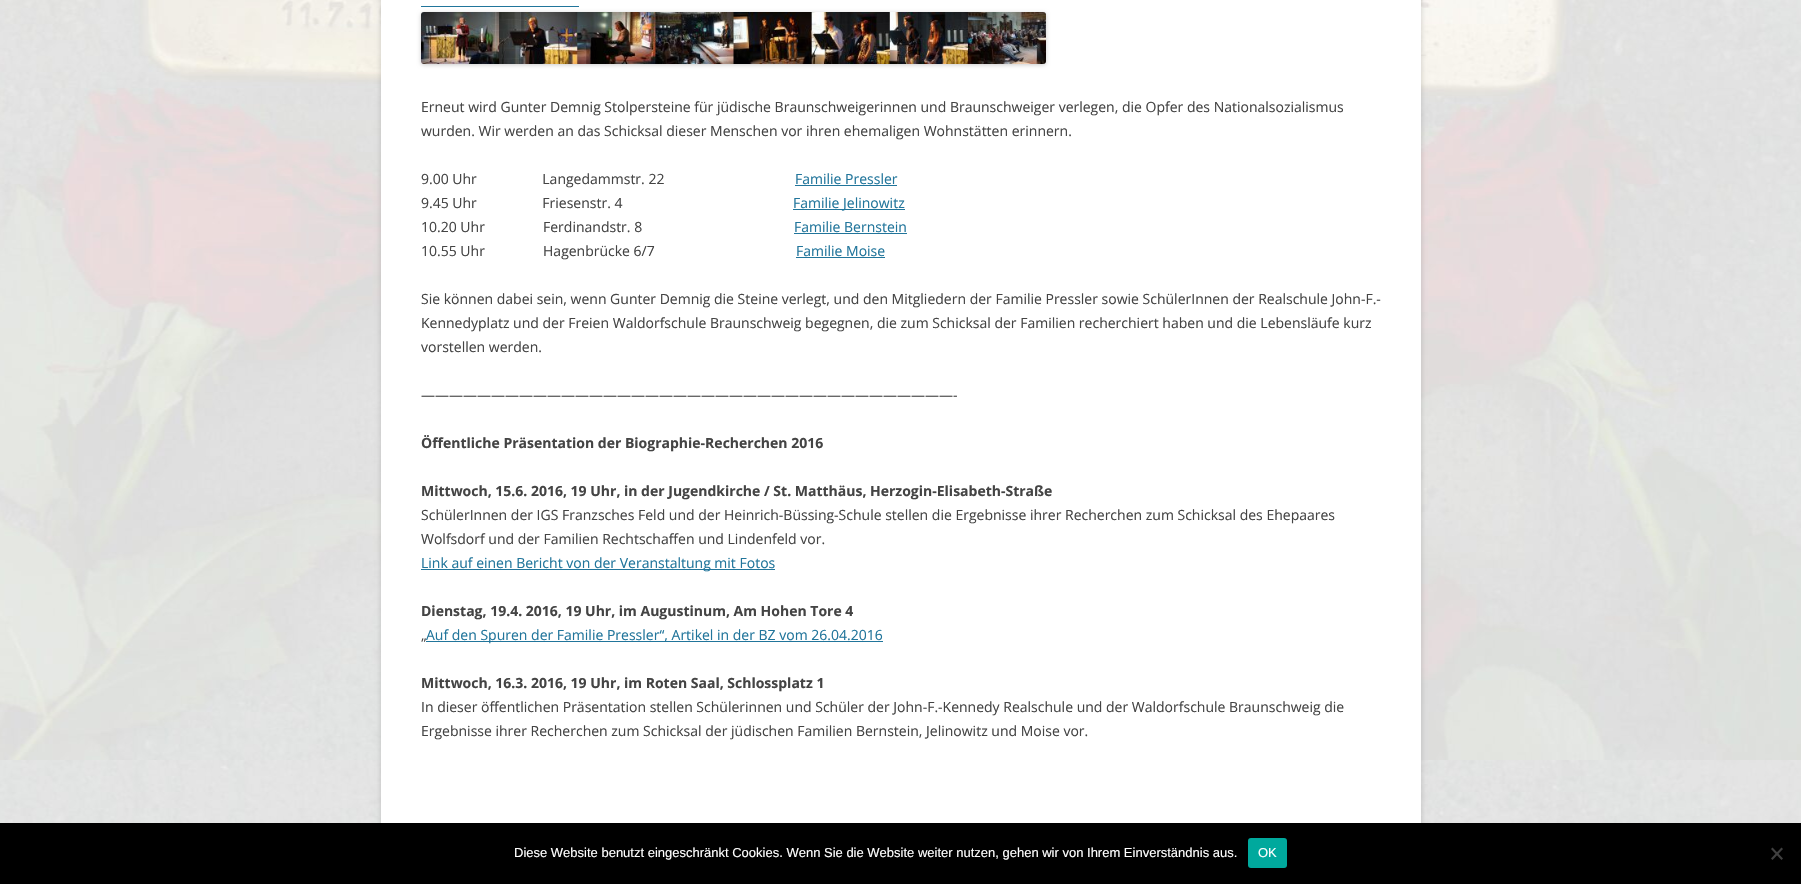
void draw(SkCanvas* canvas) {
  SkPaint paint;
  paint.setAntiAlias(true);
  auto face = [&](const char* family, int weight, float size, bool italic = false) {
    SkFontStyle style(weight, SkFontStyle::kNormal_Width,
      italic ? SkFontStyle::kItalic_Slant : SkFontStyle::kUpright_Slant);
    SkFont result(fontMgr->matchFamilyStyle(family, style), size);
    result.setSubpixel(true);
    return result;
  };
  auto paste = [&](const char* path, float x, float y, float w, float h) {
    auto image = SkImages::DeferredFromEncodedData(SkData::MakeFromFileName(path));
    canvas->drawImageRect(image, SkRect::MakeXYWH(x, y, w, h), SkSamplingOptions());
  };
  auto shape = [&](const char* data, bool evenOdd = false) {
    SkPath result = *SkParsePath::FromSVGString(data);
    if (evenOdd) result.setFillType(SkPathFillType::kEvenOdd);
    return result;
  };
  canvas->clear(0xffffffff);
  paste("img/1.png", 0, 0, 1801, 823);
  paint.setColor(0x4d646464);
  paint.setMaskFilter(SkMaskFilter::MakeBlur(kNormal_SkBlurStyle, 3));
  canvas->drawRect(SkRect::MakeXYWH(381, -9, 1040, 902), paint);
  paint.setMaskFilter(nullptr);
  paint.setColor(0xffffffff);
  canvas->drawRect(SkRect::MakeXYWH(381, 0, 1040, 823), paint);
  paint.setColor(0xff21759b);
  canvas->drawRect(SkRect::MakeXYWH(421, 6, 158, 1), paint);
  paint.setColor(0x33000000);
  paint.setMaskFilter(SkMaskFilter::MakeBlur(kNormal_SkBlurStyle, 2));
  canvas->drawRoundRect(SkRect::MakeXYWH(421, 13, 625, 52), 3, 3, paint);
  paint.setMaskFilter(nullptr);
  paste("img/2.png", 421, 12, 625, 52);
  {
    const struct { float x, y, w, h; SkColor color; } items[] = {
      {795, 185, 102, 1, 0xff21759b},
      {793, 209, 112, 1, 0xff21759b},
      {794, 233, 113, 1, 0xff21759b},
      {796, 257, 89, 1, 0xff21759b},
      {421, 569, 354, 1, 0xff21759b},
      {426, 641, 457, 1, 0xff21759b},
      {0, 823, 1801, 61, 0xff000000},
    };
    for (auto [x, y, w, h, color] : items) {
      paint.setColor(color);
      canvas->drawRect(SkRect::MakeXYWH(x, y, w, h), paint);
    }
  }
  paint.setColor(0xff00a99d);
  canvas->drawRoundRect(SkRect::MakeXYWH(1248, 838, 39, 30), 3, 3, paint);
  paint.setColor(0xff404040);
  canvas->drawPath(shape("M1781.5 847.5L1783 849L1772.5 860L1771 858.5Z"), paint);
  canvas->drawPath(shape("M1771 849L1772.5 847.5L1783 858.5L1781.5 860Z"), paint);
  auto f0 = face("Open Sans", 400, 14);
  paint.setColor(0xff444444);
  {
    const struct { const char* s; float x, y; } items[] = {
      {"Erneut wird Gunter Demnig Stolpersteine für jüdische Braunschweigerinnen und Braunschweiger verlegen, die Opfer des Nationalsozialismus", 421, 112},
      {"wurden. Wir werden an das Schicksal dieser Menschen vor ihren ehemaligen Wohnstätten erinnern.", 421, 136},
      {"9.00 Uhr                  Langedammstr. 22", 421, 184},
    };
    for (auto [s, x, y] : items) {
      canvas->drawString(s, x, y, f0, paint);
    }
  }
  paint.setColor(0xff21759b);
  canvas->drawString("Familie Pressler", 795, 184, f0, paint);
  paint.setColor(0xff444444);
  canvas->drawString("9.45 Uhr                  Friesenstr. 4", 421, 208, f0, paint);
  paint.setColor(0xff21759b);
  canvas->drawString("Familie Jelinowitz", 793, 208, f0, paint);
  paint.setColor(0xff444444);
  canvas->drawString("10.20 Uhr                Ferdinandstr. 8", 421, 232, f0, paint);
  paint.setColor(0xff21759b);
  canvas->drawString("Familie Bernstein", 794, 232, f0, paint);
  paint.setColor(0xff444444);
  canvas->drawString("10.55 Uhr                Hagenbrücke 6/7", 421, 256, f0, paint);
  paint.setColor(0xff21759b);
  canvas->drawString("Familie Moise", 796, 256, f0, paint);
  paint.setColor(0xff444444);
  {
    const struct { const char* s; float x, y; } items[] = {
      {"Sie können dabei sein, wenn Gunter Demnig die Steine verlegt, und den Mitgliedern der Familie Pressler sowie SchülerInnen der Realschule John-F.-", 421, 304},
      {"Kennedyplatz und der Freien Waldorfschule Braunschweig begegnen, die zum Schicksal der Familien recherchiert haben und die Lebensläufe kurz", 421, 328},
      {"vorstellen werden.", 421, 352},
      {"——————————————————————————————————————-", 421, 400},
    };
    for (auto [s, x, y] : items) {
      canvas->drawString(s, x, y, f0, paint);
    }
  }
  auto f1 = face("Open Sans", 700, 14);
  canvas->drawString("Öffentliche Präsentation der Biographie-Recherchen 2016", 421, 448, f1, paint);
  canvas->drawString("Mittwoch, 15.6. 2016, 19 Uhr, in der Jugendkirche / St. Matthäus, Herzogin-Elisabeth-Straße", 421, 496, f1, paint);
  canvas->drawString("SchülerInnen der IGS Franzsches Feld und der Heinrich-Büssing-Schule stellen die Ergebnisse ihrer Recherchen zum Schicksal des Ehepaares", 421, 520, f0, paint);
  canvas->drawString("Wolfsdorf und der Familien Rechtschaffen und Lindenfeld vor.", 421, 544, f0, paint);
  paint.setColor(0xff21759b);
  canvas->drawString("Link auf einen Bericht von der Veranstaltung mit Fotos", 421, 568, f0, paint);
  paint.setColor(0xff444444);
  canvas->drawString("Dienstag, 19.4. 2016, 19 Uhr, im Augustinum, Am Hohen Tore 4", 421, 616, f1, paint);
  canvas->drawString("„", 421, 640, f0, paint);
  paint.setColor(0xff21759b);
  canvas->drawString("Auf den Spuren der Familie Pressler“, Artikel in der BZ vom 26.04.2016", 426, 640, f0, paint);
  paint.setColor(0xff444444);
  canvas->drawString("Mittwoch, 16.3. 2016, 19 Uhr, im Roten Saal, Schlossplatz 1", 421, 688, f1, paint);
  canvas->drawString("In dieser öffentlichen Präsentation stellen Schülerinnen und Schüler der John-F.-Kennedy Realschule und der Waldorfschule Braunschweig die", 421, 712, f0, paint);
  canvas->drawString("Ergebnisse ihrer Recherchen zum Schicksal der jüdischen Familien Bernstein, Jelinowitz und Moise vor.", 421, 736, f0, paint);
  auto f2 = face("Liberation Sans", 400, 13);
  paint.setColor(0xffffffff);
  canvas->drawString("Diese Website benutzt eingeschränkt Cookies. Wenn Sie die Website weiter nutzen, gehen wir von Ihrem Einverständnis aus.", 514, 857, f2, paint);
  canvas->drawString("OK", 1258, 857, f2, paint);
}
